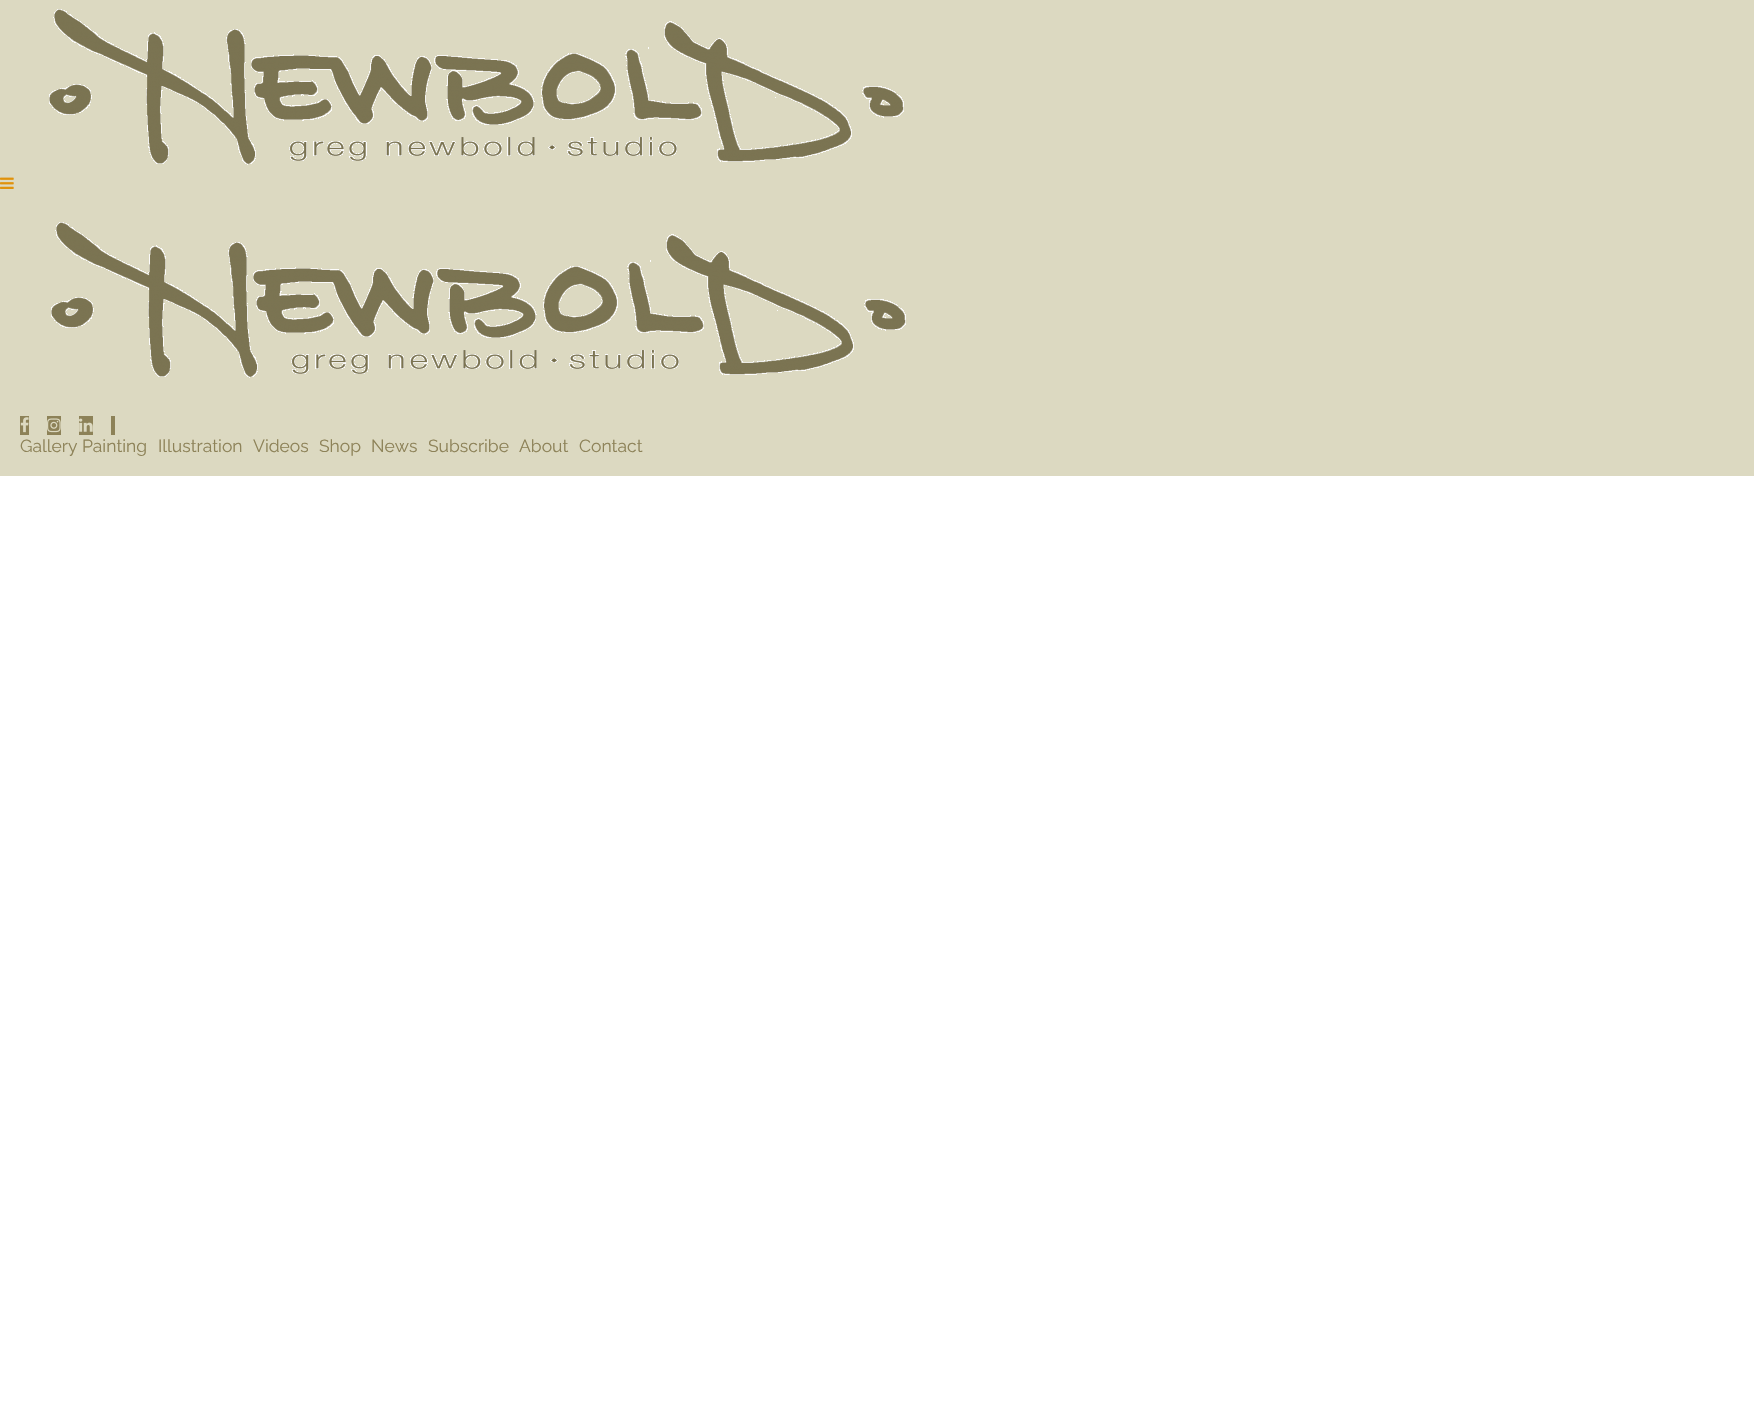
void draw(SkCanvas* canvas) {
  SkPaint paint;
  paint.setAntiAlias(true);
  auto face = [&](const char* family, int weight, float size, bool italic = false) {
    SkFontStyle style(weight, SkFontStyle::kNormal_Width,
      italic ? SkFontStyle::kItalic_Slant : SkFontStyle::kUpright_Slant);
    SkFont result(fontMgr->matchFamilyStyle(family, style), size);
    result.setSubpixel(true);
    return result;
  };
  auto paste = [&](const char* path, float x, float y, float w, float h) {
    auto image = SkImages::DeferredFromEncodedData(SkData::MakeFromFileName(path));
    canvas->drawImageRect(image, SkRect::MakeXYWH(x, y, w, h), SkSamplingOptions());
  };
  canvas->clear(0xffffffff);
  paint.setColor(0xffdcd9c1);
  canvas->drawRect(SkRect::MakeXYWH(0, 0, 1754, 476), paint);
  paste("img/1.png", 49, 9, 855, 156);
  paste("img/2.png", 0, 177, 14, 12);
  paste("img/1.png", 51, 222, 855, 156);
  paint.setColor(0xff8d8258);
  canvas->drawRect(SkRect::MakeXYWH(20, 416, 9, 19), paint);
  paste("img/3.png", 20, 417, 9, 16);
  canvas->drawRect(SkRect::MakeXYWH(47, 416, 14, 19), paint);
  paste("img/4.png", 47, 418, 14, 15);
  canvas->drawRect(SkRect::MakeXYWH(79, 416, 14, 19), paint);
  paste("img/5.png", 79, 418, 14, 14);
  canvas->drawRect(SkRect::MakeXYWH(111, 416, 4, 19), paint);
  auto f0 = face("Raleway", 100, 17.5f);
  {
    const struct { const char* s; float x, y; } items[] = {
      {"Gallery Painting", 20, 452},
      {"Illustration", 158, 452},
      {"Videos", 253, 452},
      {"Shop", 319, 452},
      {"News", 371, 452},
      {"Subscribe", 428, 452},
      {"About", 519, 452},
      {"Contact", 579, 452},
    };
    for (auto [s, x, y] : items) {
      canvas->drawString(s, x, y, f0, paint);
    }
  }
}
